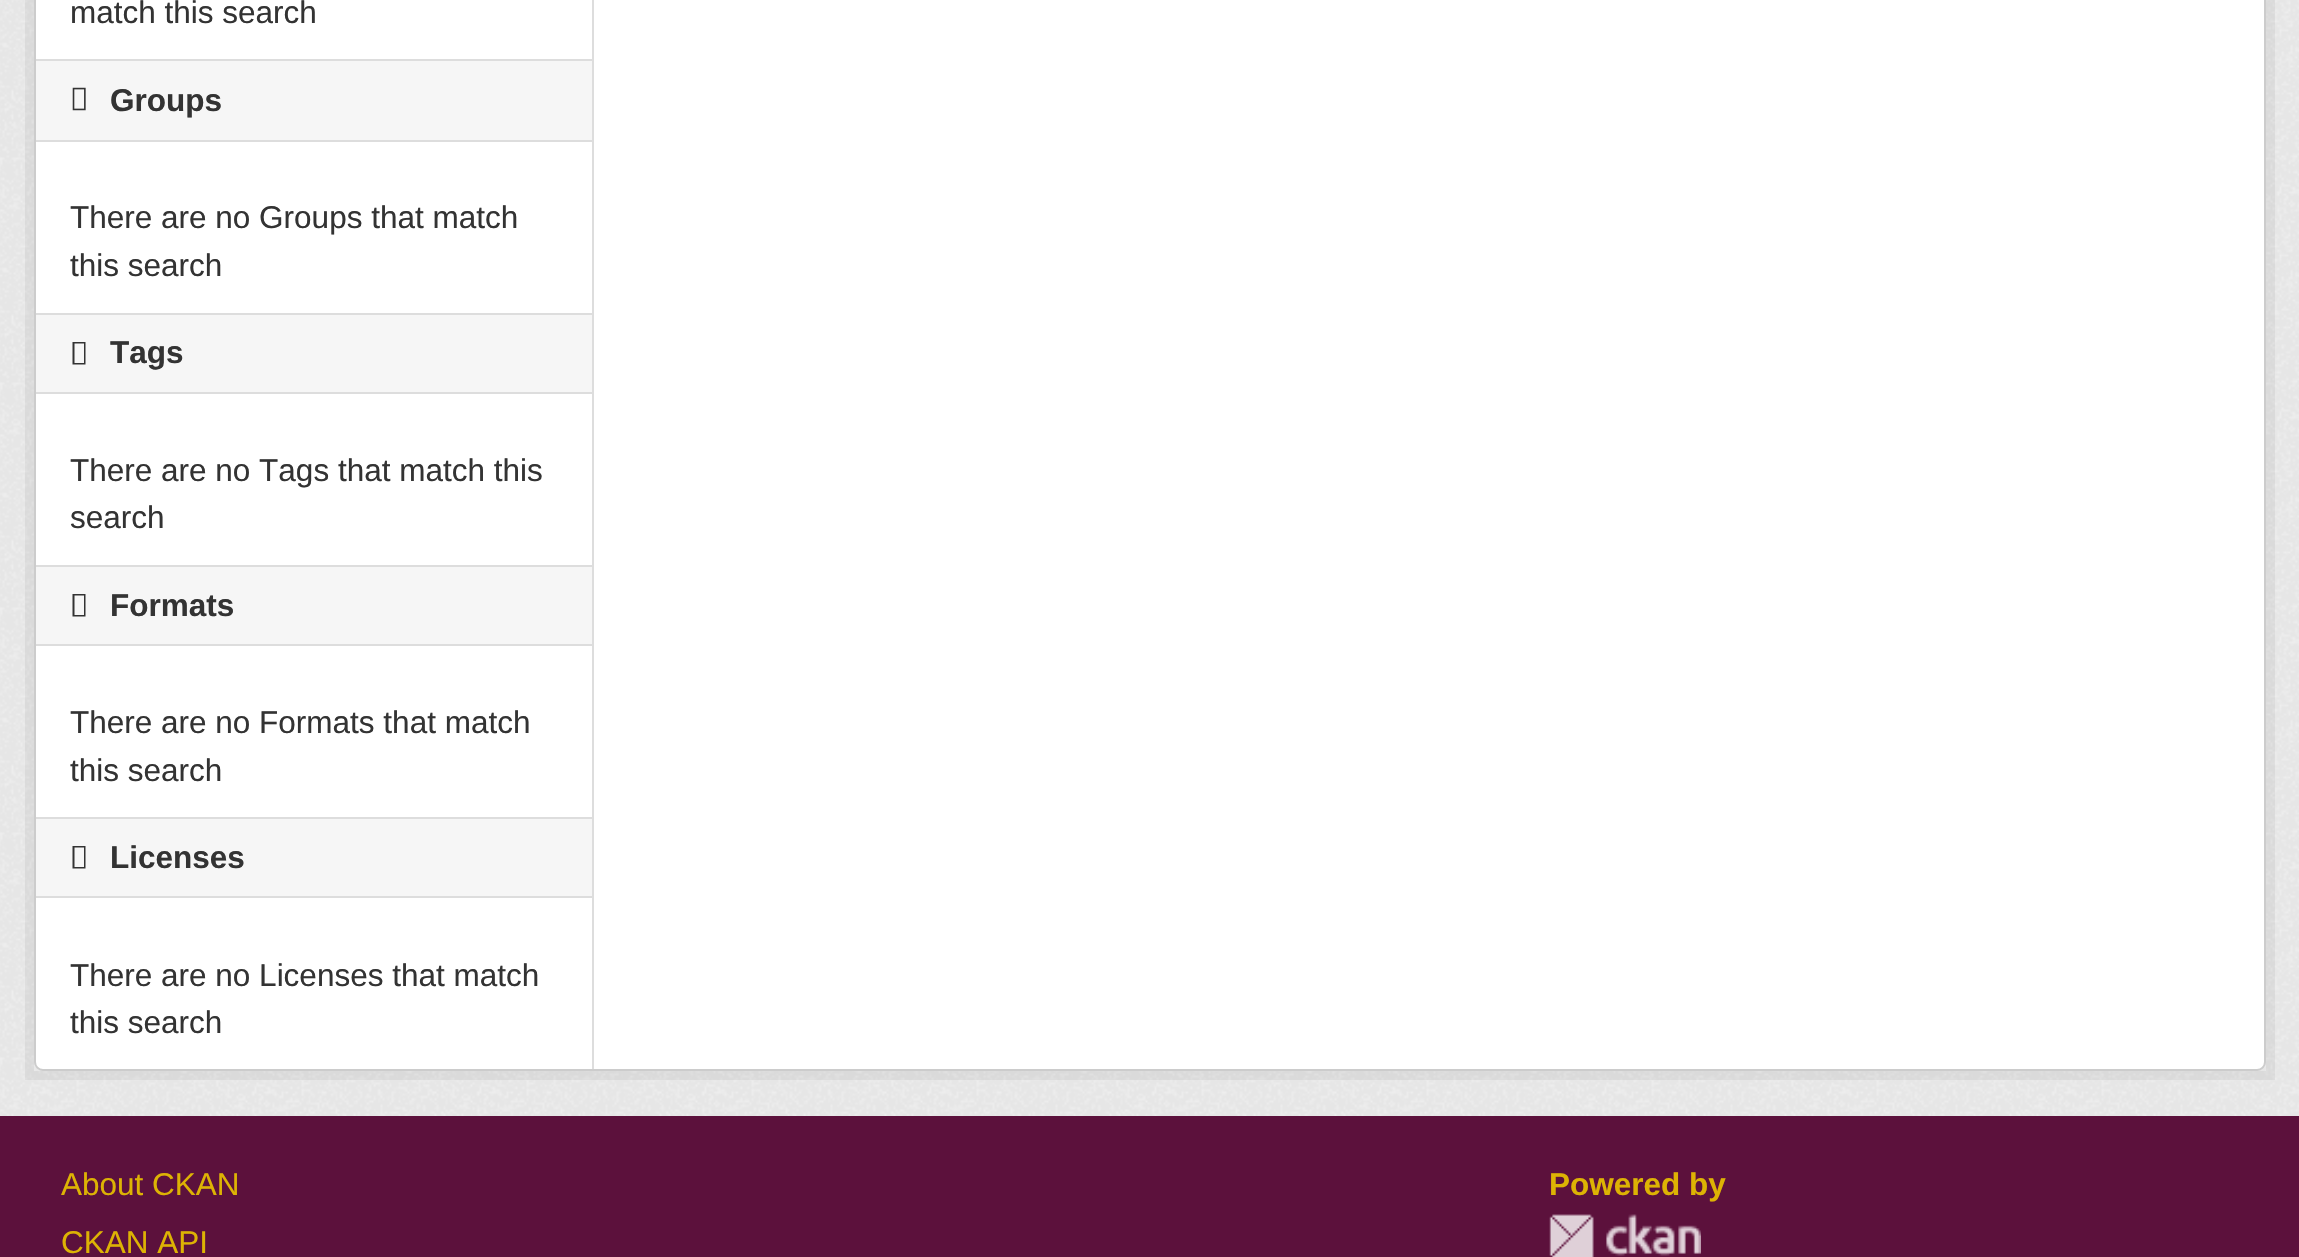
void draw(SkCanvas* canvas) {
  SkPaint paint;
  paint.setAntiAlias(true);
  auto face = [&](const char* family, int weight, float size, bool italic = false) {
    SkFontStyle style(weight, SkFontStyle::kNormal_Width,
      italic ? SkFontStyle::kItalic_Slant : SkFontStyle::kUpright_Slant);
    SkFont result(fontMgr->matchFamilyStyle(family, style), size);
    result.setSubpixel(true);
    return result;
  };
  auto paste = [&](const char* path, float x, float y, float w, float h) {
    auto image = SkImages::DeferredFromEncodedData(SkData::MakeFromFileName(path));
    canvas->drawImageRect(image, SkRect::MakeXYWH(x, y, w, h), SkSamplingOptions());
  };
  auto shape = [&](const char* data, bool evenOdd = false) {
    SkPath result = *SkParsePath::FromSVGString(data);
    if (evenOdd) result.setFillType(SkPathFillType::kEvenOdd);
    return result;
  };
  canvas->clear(0xff5c113c);
  paint.setColor(0xffeeeeee);
  canvas->drawRect(SkRect::MakeXYWH(0, 0, 2299, 1116), paint);
  paste("img/1.png", 0, 0, 2299, 1116);
  paint.setStroke(true);
  paint.setStrokeWidth(9);
  paint.setColor(0x0d000000);
  canvas->drawRect(SkRect::MakeXYWH(29.5f, -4.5f, 2241, 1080), paint);
  paint.setStroke(false);
  paint.setColor(0xffffffff);
  canvas->drawRoundRect(SkRect::MakeXYWH(35, -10, 2230, 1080), 8, 8, paint);
  paint.setStroke(true);
  paint.setStrokeWidth(2);
  paint.setColor(0xffcccccc);
  canvas->drawRoundRect(SkRect::MakeXYWH(35, -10, 2230, 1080), 8, 8, paint);
  paint.setStroke(false);
  {
    const struct { float x, y, w, h; SkColor color; } items[] = {
      {36, 61, 556, 79, 0xfff6f6f6},
      {36, 59, 556, 2, 0xffdddddd},
      {36, 140, 556, 2, 0xffdddddd},
    };
    for (auto [x, y, w, h, color] : items) {
      paint.setColor(color);
      canvas->drawRect(SkRect::MakeXYWH(x, y, w, h), paint);
    }
  }
  paste("img/2.png", 72, 87, 14, 24);
  {
    const struct { float x, y, w, h; SkColor color; } items[] = {
      {36, 315, 556, 77, 0xfff6f6f6},
      {36, 313, 556, 2, 0xffdddddd},
      {36, 392, 556, 2, 0xffdddddd},
    };
    for (auto [x, y, w, h, color] : items) {
      paint.setColor(color);
      canvas->drawRect(SkRect::MakeXYWH(x, y, w, h), paint);
    }
  }
  paint.setColor(0xff333333);
  canvas->drawPath(shape("M72.5 364.5V342H85.5V364.5ZM74.5 363H84V343.5H74.5Z"), paint);
  {
    const struct { float x, y, w, h; SkColor color; } items[] = {
      {36, 567, 556, 77, 0xfff6f6f6},
      {36, 565, 556, 2, 0xffdddddd},
      {36, 644, 556, 2, 0xffdddddd},
    };
    for (auto [x, y, w, h, color] : items) {
      paint.setColor(color);
      canvas->drawRect(SkRect::MakeXYWH(x, y, w, h), paint);
    }
  }
  paint.setColor(0xff333333);
  canvas->drawPath(shape("M72.5 616.5V594H85.5V616.5ZM74.5 615H84V595.5H74.5Z"), paint);
  {
    const struct { float x, y, w, h; SkColor color; } items[] = {
      {36, 819, 556, 77, 0xfff6f6f6},
      {36, 817, 556, 2, 0xffdddddd},
      {36, 896, 556, 2, 0xffdddddd},
    };
    for (auto [x, y, w, h, color] : items) {
      paint.setColor(color);
      canvas->drawRect(SkRect::MakeXYWH(x, y, w, h), paint);
    }
  }
  paint.setColor(0xff333333);
  canvas->drawPath(shape("M72.5 868.5V846H85.5V868.5ZM74.5 867H84V847.5H74.5Z"), paint);
  paint.setColor(0xffdddddd);
  canvas->drawRect(SkRect::MakeXYWH(592, 0, 2, 1069), paint);
  paste("img/3.png", 1549, 1214, 152, 43);
  auto f0 = face("Liberation Sans", 400, 31.5f);
  paint.setColor(0xff333333);
  canvas->drawString("match this search", 70, 23, f0, paint);
  auto f1 = face("Liberation Sans", 700, 31.5f);
  canvas->drawString("Groups", 110, 111, f1, paint);
  canvas->drawString("There are no Groups that match", 70, 228, f0, paint);
  canvas->drawString("this search", 70, 276, f0, paint);
  canvas->drawString("Tags", 110, 363, f1, paint);
  canvas->drawString("There are no Tags that match this", 70, 481, f0, paint);
  canvas->drawString("search", 70, 528, f0, paint);
  canvas->drawString("Formats", 110, 616, f1, paint);
  canvas->drawString("There are no Formats that match", 70, 733, f0, paint);
  canvas->drawString("this search", 70, 781, f0, paint);
  canvas->drawString("Licenses", 110, 868, f1, paint);
  canvas->drawString("There are no Licenses that match", 70, 986, f0, paint);
  canvas->drawString("this search", 70, 1033, f0, paint);
  paint.setColor(0xffddb304);
  canvas->drawString("About CKAN", 61, 1195, f0, paint);
  canvas->drawString("CKAN API", 61, 1253, f0, paint);
  canvas->drawString("Powered by", 1549, 1195, f1, paint);
}
